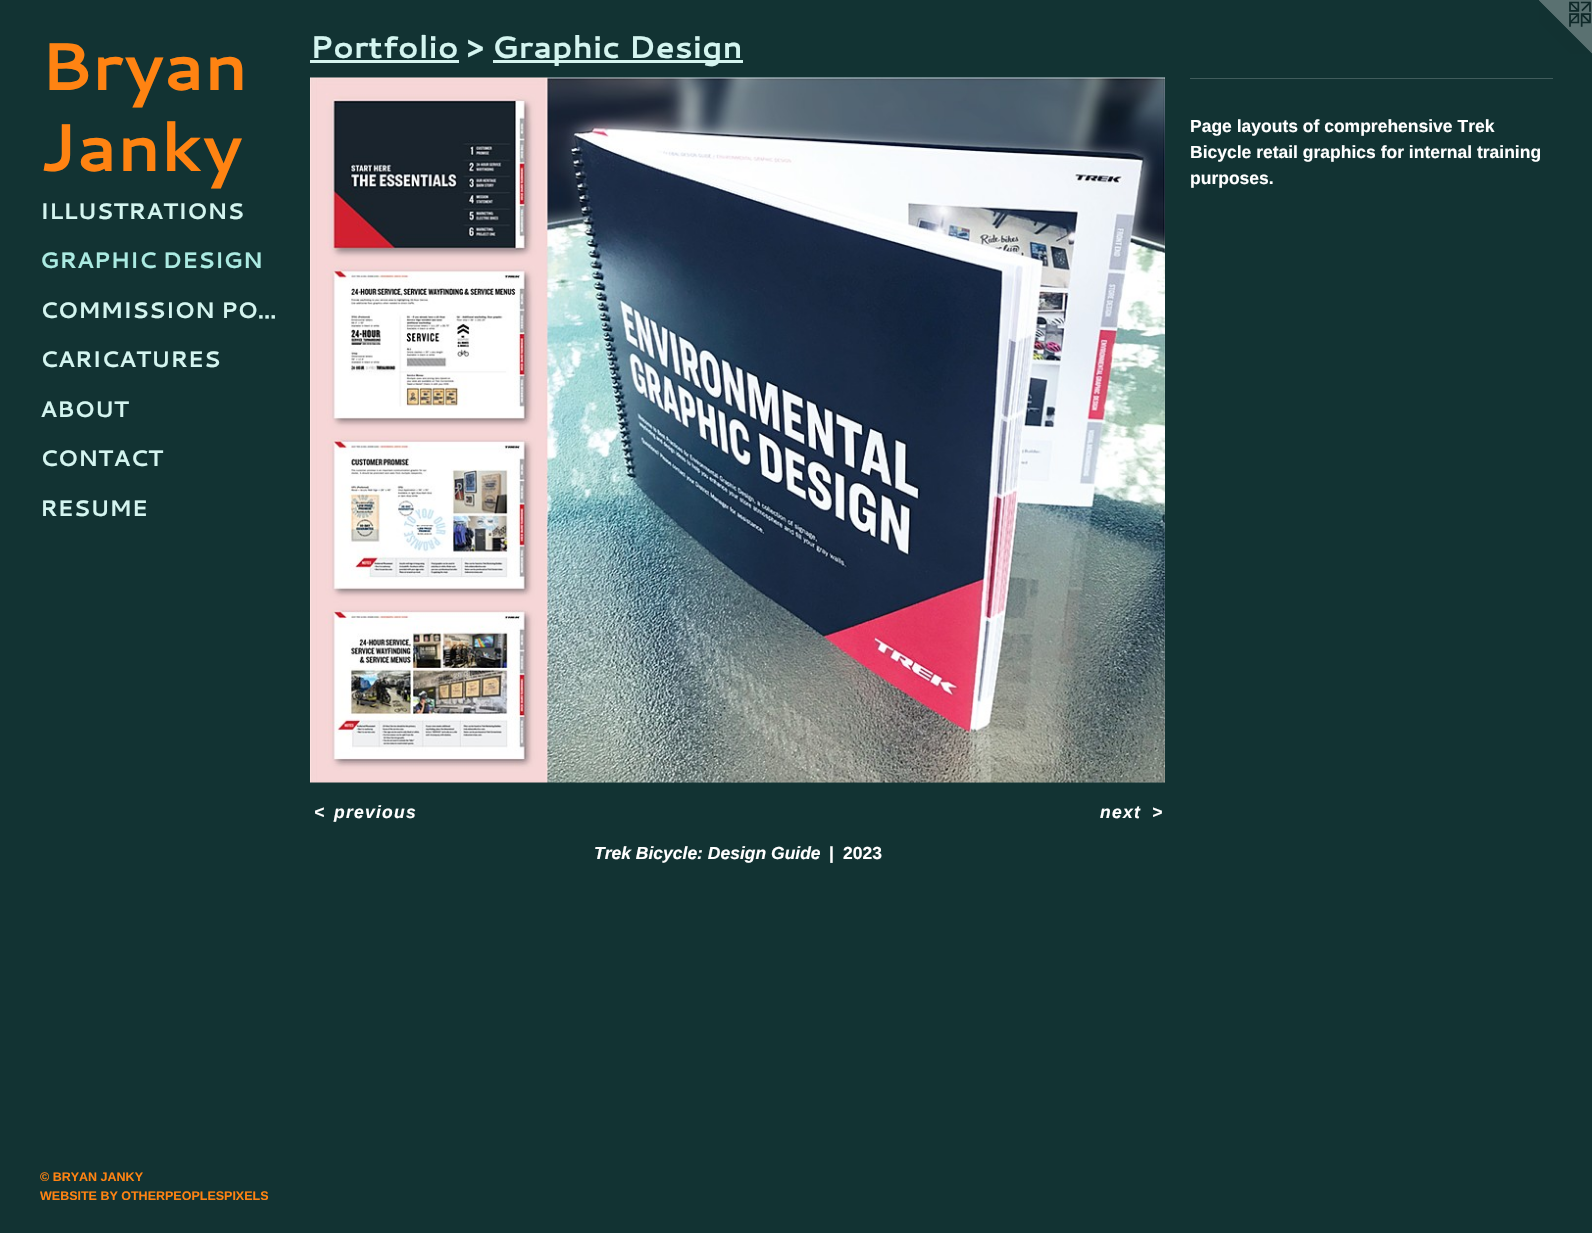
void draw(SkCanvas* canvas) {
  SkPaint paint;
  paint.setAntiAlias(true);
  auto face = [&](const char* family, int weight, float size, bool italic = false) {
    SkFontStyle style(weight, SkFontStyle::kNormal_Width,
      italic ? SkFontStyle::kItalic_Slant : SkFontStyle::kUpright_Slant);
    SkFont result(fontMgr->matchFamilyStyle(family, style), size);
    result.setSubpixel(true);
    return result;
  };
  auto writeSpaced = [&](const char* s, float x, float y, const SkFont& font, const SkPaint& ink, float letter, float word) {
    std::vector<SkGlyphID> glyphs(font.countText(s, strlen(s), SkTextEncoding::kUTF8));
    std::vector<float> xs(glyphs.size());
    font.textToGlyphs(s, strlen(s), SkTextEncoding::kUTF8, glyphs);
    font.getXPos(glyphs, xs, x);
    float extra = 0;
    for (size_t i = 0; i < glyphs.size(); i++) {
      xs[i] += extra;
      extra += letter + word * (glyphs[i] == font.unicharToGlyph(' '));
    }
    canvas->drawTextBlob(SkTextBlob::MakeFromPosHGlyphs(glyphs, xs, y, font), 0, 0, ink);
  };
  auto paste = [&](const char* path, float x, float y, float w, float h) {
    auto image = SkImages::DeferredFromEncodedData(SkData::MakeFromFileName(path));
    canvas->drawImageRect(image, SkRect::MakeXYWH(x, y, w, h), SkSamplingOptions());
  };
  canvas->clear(0xff123333);
  paste("img/1.png", 1539, 0, 53, 54);
  {
    const struct { float x, y, w, h; SkColor color; } items[] = {
      {310, 60, 149, 3, 0xffd4f5f0},
      {493, 60, 250, 3, 0xffd4f5f0},
      {1190, 78, 363, 1, 0xff415c5c},
    };
    for (auto [x, y, w, h, color] : items) {
      paint.setColor(color);
      canvas->drawRect(SkRect::MakeXYWH(x, y, w, h), paint);
    }
  }
  paste("img/2.png", 310, 77, 855, 706);
  auto f0 = face("Cantarell", 700, 67.5f);
  paint.setColor(0xffff8312);
  canvas->drawString("Bryan", 40, 90, f0, paint);
  canvas->drawString("Janky", 40, 171, f0, paint);
  auto f1 = face("Cantarell", 700, 22.5f);
  paint.setColor(0xffd4f5f0);
  canvas->drawString("ILLUSTRATIONS", 40, 219, f1, paint);
  paint.setColor(0xffabebe2);
  canvas->drawString("GRAPHIC DESIGN", 40, 268, f1, paint);
  paint.setColor(0xffd4f5f0);
  {
    const struct { const char* s; float x, y; } items[] = {
      {"COMMISSION PO…", 40, 318},
      {"CARICATURES", 40, 367},
      {"ABOUT", 40, 417},
      {"CONTACT", 40, 466},
      {"RESUME", 40, 516},
    };
    for (auto [s, x, y] : items) {
      canvas->drawString(s, x, y, f1, paint);
    }
  }
  auto f2 = face("Liberation Sans", 700, 12.5f);
  paint.setColor(0xffff8312);
  canvas->drawString("© BRYAN JANKY", 40, 1181, f2, paint);
  canvas->drawString("WEBSITE BY OTHERPEOPLESPIXELS", 40, 1200, f2, paint);
  auto f3 = face("Cantarell", 700, 31.25f);
  paint.setColor(0xffd4f5f0);
  canvas->drawString("Portfolio >", 310, 58, f3, paint);
  canvas->drawString("Graphic Design", 492, 58, f3, paint);
  auto f4 = face("Liberation Sans", 700, 17.5f);
  paint.setColor(0xffffffff);
  {
    const struct { const char* s; float x, y; } items[] = {
      {"Page layouts of comprehensive Trek", 1190, 132},
      {"Bicycle retail graphics for internal training", 1190, 158},
      {"purposes.", 1190, 184},
    };
    for (auto [s, x, y] : items) {
      canvas->drawString(s, x, y, f4, paint);
    }
  }
  auto f5 = face("Liberation Sans", 700, 17.5f, true);
  {
    const struct { const char* s; float x, y; } items[] = {
      {"<", 314, 818},
      {"previous", 334, 818},
      {"next", 1100, 818},
      {">", 1152, 818},
    };
    for (auto [s, x, y] : items) {
      writeSpaced(s, x, y, f5, paint, 1.25f, 0);
    }
  }
  canvas->drawString("Trek Bicycle: Design Guide", 594, 859, f5, paint);
  canvas->drawString("|", 829, 859, f4, paint);
  canvas->drawString("2023", 843, 859, f4, paint);
}
